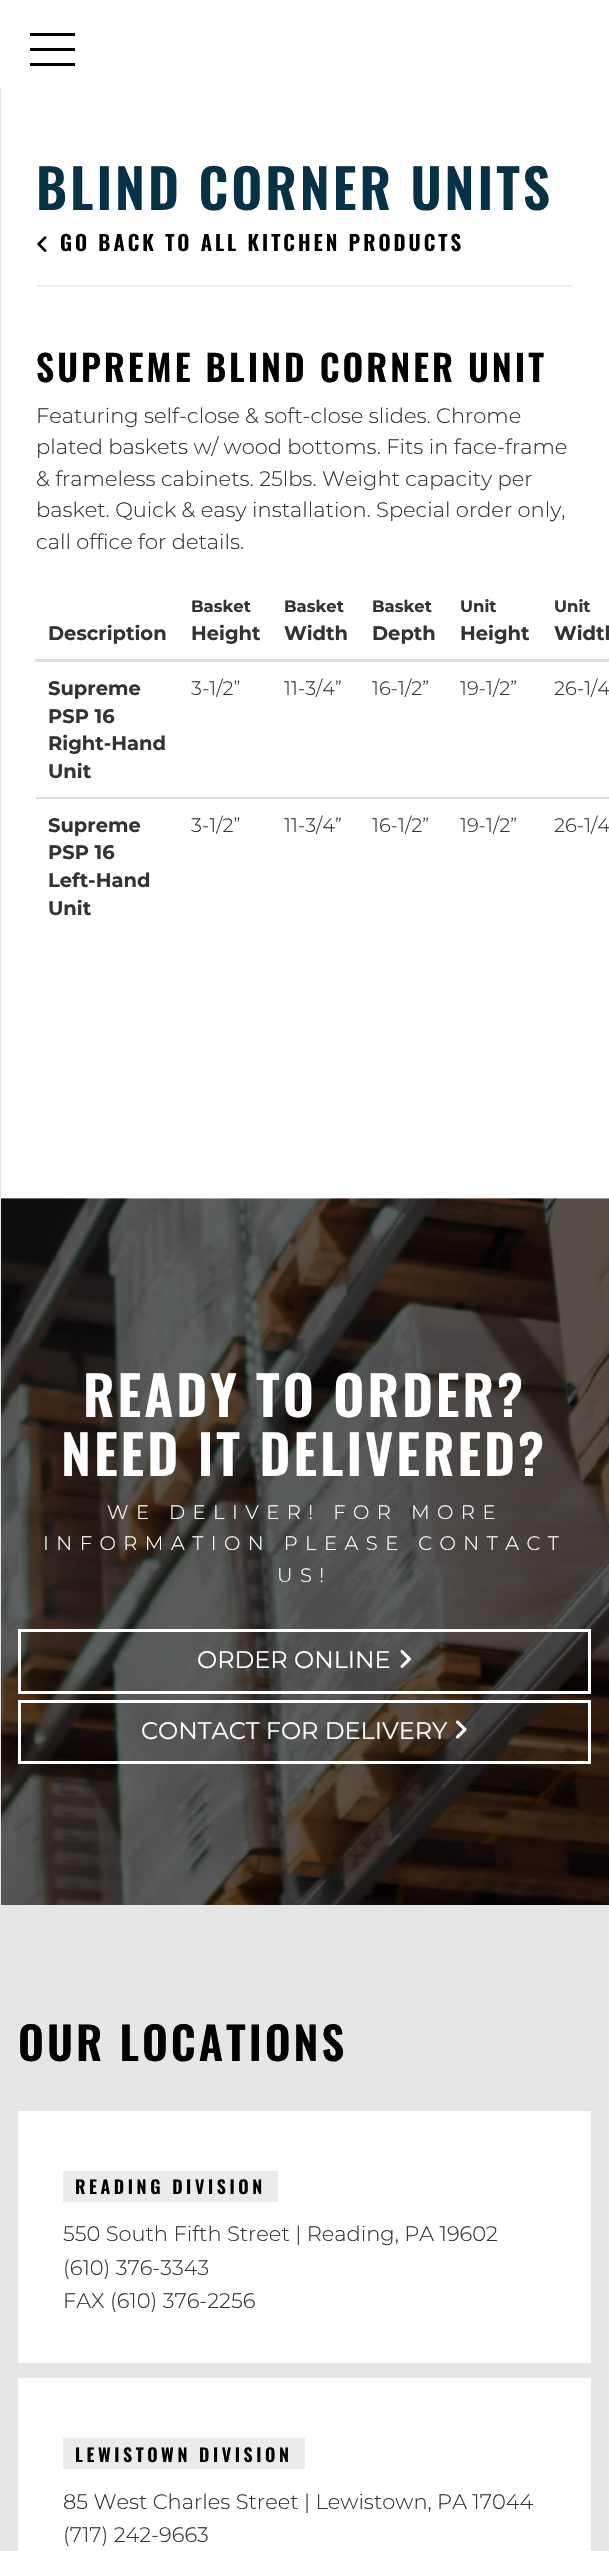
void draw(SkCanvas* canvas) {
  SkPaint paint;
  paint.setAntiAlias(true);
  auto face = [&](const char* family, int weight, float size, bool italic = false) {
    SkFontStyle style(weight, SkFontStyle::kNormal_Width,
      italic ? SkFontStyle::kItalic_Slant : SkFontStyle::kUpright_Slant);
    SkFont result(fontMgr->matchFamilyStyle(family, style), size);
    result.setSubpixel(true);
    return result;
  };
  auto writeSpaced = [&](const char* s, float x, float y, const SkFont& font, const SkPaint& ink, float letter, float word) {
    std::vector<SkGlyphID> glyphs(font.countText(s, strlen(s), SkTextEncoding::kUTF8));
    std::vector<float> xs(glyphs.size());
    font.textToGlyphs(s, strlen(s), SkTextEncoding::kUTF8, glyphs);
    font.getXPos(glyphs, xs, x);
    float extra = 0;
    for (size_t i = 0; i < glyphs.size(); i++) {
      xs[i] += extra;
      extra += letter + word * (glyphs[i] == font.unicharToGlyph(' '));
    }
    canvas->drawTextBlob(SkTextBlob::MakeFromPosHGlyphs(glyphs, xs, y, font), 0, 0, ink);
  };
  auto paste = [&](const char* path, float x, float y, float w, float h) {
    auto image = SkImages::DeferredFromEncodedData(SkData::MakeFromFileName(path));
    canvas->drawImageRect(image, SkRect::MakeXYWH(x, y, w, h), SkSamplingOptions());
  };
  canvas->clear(0xffffffff);
  {
    const struct { float x, y, w, h; SkColor color; } items[] = {
      {30, 48, 45, 3, 0xff000000},
      {30, 33, 45, 3, 0xff000000},
      {30, 63, 45, 3, 0xff000000},
      {0, 89, 1, 2462, 0xffe6e6e6},
    };
    for (auto [x, y, w, h, color] : items) {
      paint.setColor(color);
      canvas->drawRect(SkRect::MakeXYWH(x, y, w, h), paint);
    }
  }
  paste("img/1.png", 37, 236, 10, 16);
  {
    const struct { float x, y, w, h; SkColor color; } items[] = {
      {36, 285, 537, 2, 0xffeeeeee},
      {35, 659, 574, 3, 0xffdddddd},
      {36, 797, 573, 2, 0xffdddddd},
    };
    for (auto [x, y, w, h, color] : items) {
      paint.setColor(color);
      canvas->drawRect(SkRect::MakeXYWH(x, y, w, h), paint);
    }
  }
  paste("img/2.png", 1, 1198, 608, 707);
  paint.setStroke(true);
  paint.setStrokeWidth(3);
  paint.setColor(0xffffffff);
  canvas->drawRect(SkRect::MakeXYWH(19.5f, 1630.5f, 570, 62), paint);
  paste("img/3.png", 400, 1650, 11, 18);
  canvas->drawRect(SkRect::MakeXYWH(19.5f, 1701.5f, 570, 61), paint);
  paste("img/4.png", 456, 1720, 11, 19);
  paint.setStroke(false);
  {
    const struct { float x, y, w, h; SkColor color; } items[] = {
      {1, 1905, 608, 646, 0xffe6e6e6},
      {18, 2111, 573, 252, 0xffffffff},
      {63, 2171, 215, 31, 0xffebebeb},
      {18, 2378, 573, 173, 0xffffffff},
      {63, 2438, 242, 31, 0xffebebeb},
    };
    for (auto [x, y, w, h, color] : items) {
      paint.setColor(color);
      canvas->drawRect(SkRect::MakeXYWH(x, y, w, h), paint);
    }
  }
  auto f0 = face("Oswald", 600, 54);
  paint.setColor(0xff063146);
  writeSpaced("BLIND CORNER UNITS", 36, 210, f0, paint, 3, 0);
  auto f1 = face("Oswald", 600, 21);
  paint.setColor(0xff000000);
  writeSpaced("GO BACK TO ALL KITCHEN PRODUCTS", 60, 251, f1, paint, 3, 0);
  auto f2 = face("Oswald", 600, 36);
  writeSpaced("SUPREME BLIND CORNER UNIT", 36, 382, f2, paint, 3, 0);
  auto f3 = face("Montserrat", 300, 21);
  paint.setColor(0xff333333);
  {
    const struct { const char* s; float x, y; } items[] = {
      {"Featuring self-close & soft-close slides. Chrome", 36, 423},
      {"plated baskets w/ wood bottoms. Fits in face-frame", 36, 454},
      {"& frameless cabinets. 25lbs. Weight capacity per", 36, 486},
      {"basket. Quick & easy installation. Special order only,", 36, 517},
      {"call office for details.", 36, 549},
    };
    for (auto [s, x, y] : items) {
      canvas->drawString(s, x, y, f3, paint);
    }
  }
  auto f4 = face("Montserrat", 700, 19.5f);
  canvas->drawString("Description", 48, 640, f4, paint);
  auto f5 = face("Montserrat", 700, 16.5f);
  canvas->drawString("Basket", 191, 612, f5, paint);
  canvas->drawString("Height", 191, 640, f4, paint);
  canvas->drawString("Basket", 284, 612, f5, paint);
  canvas->drawString("Width", 284, 640, f4, paint);
  canvas->drawString("Basket", 372, 612, f5, paint);
  canvas->drawString("Depth", 372, 640, f4, paint);
  canvas->drawString("Unit", 460, 612, f5, paint);
  canvas->drawString("Height", 460, 640, f4, paint);
  canvas->drawString("Unit", 554, 612, f5, paint);
  {
    const struct { const char* s; float x, y; } items[] = {
      {"Width", 554, 640},
      {"Supreme", 48, 695},
      {"PSP 16", 48, 723},
      {"Right-Hand", 48, 750},
      {"Unit", 48, 778},
    };
    for (auto [s, x, y] : items) {
      canvas->drawString(s, x, y, f4, paint);
    }
  }
  auto f6 = face("Montserrat", 300, 19.5f);
  {
    const struct { const char* s; float x, y; } items[] = {
      {"3-1/2”", 191, 695},
      {"11-3/4”", 284, 695},
      {"16-1/2”", 372, 695},
      {"19-1/2”", 460, 695},
      {"26-1/4", 554, 695},
    };
    for (auto [s, x, y] : items) {
      canvas->drawString(s, x, y, f6, paint);
    }
  }
  {
    const struct { const char* s; float x, y; } items[] = {
      {"Supreme", 48, 832},
      {"PSP 16", 48, 859},
      {"Left-Hand", 48, 887},
      {"Unit", 48, 915},
    };
    for (auto [s, x, y] : items) {
      canvas->drawString(s, x, y, f4, paint);
    }
  }
  {
    const struct { const char* s; float x, y; } items[] = {
      {"3-1/2”", 191, 832},
      {"11-3/4”", 284, 832},
      {"16-1/2”", 372, 832},
      {"19-1/2”", 460, 832},
      {"26-1/4", 554, 832},
    };
    for (auto [s, x, y] : items) {
      canvas->drawString(s, x, y, f6, paint);
    }
  }
  paint.setColor(0xffffffff);
  writeSpaced("READY TO ORDER?", 83, 1417, f0, paint, 3, 0);
  writeSpaced("NEED IT DELIVERED?", 61, 1476, f0, paint, 3, 0);
  {
    const struct { const char* s; float x, y; } items[] = {
      {"WE DELIVER! FOR MORE", 107, 1519},
      {"INFORMATION PLEASE CONTACT", 43, 1550},
      {"US!", 277, 1582},
    };
    for (auto [s, x, y] : items) {
      writeSpaced(s, x, y, f6, paint, 7.5f, 0);
    }
  }
  auto f7 = face("Montserrat", 400, 24);
  canvas->drawString("ORDER ONLINE", 197, 1668, f7, paint);
  canvas->drawString("CONTACT FOR DELIVERY", 141, 1739, f7, paint);
  auto f8 = face("Oswald", 600, 45);
  paint.setColor(0xff000000);
  writeSpaced("OUR LOCATIONS", 18, 2061, f8, paint, 3, 0);
  auto f9 = face("Oswald", 600, 18);
  writeSpaced("READING DIVISION", 75, 2194, f9, paint, 3.6f, 0);
  paint.setColor(0xff333333);
  {
    const struct { const char* s; float x, y; } items[] = {
      {"550 South Fifth Street | Reading, PA 19602", 63, 2241},
      {"(610) 376-3343", 63, 2275},
      {"FAX (610) 376-2256", 63, 2308},
    };
    for (auto [s, x, y] : items) {
      canvas->drawString(s, x, y, f3, paint);
    }
  }
  paint.setColor(0xff000000);
  writeSpaced("LEWISTOWN DIVISION", 75, 2462, f9, paint, 3.6f, 0);
  paint.setColor(0xff333333);
  canvas->drawString("85 West Charles Street | Lewistown, PA 17044", 63, 2509, f3, paint);
  canvas->drawString("(717) 242-9663", 63, 2542, f3, paint);
}
